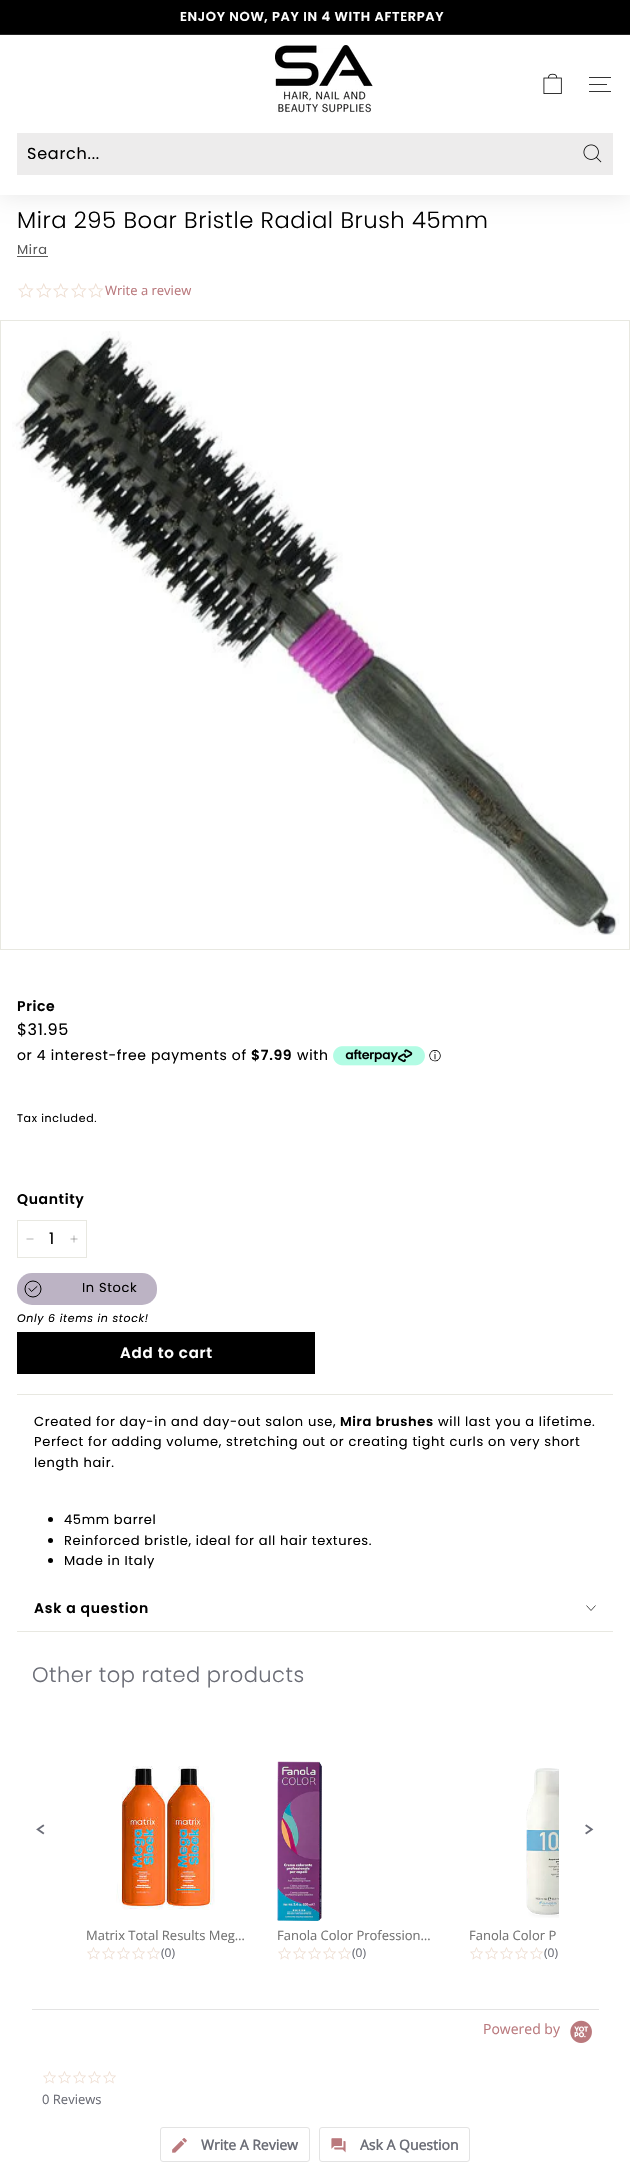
void draw(SkCanvas* canvas) {
  SkPaint paint;
  paint.setAntiAlias(true);
  auto face = [&](const char* family, int weight, float size, bool italic = false) {
    SkFontStyle style(weight, SkFontStyle::kNormal_Width,
      italic ? SkFontStyle::kItalic_Slant : SkFontStyle::kUpright_Slant);
    SkFont result(fontMgr->matchFamilyStyle(family, style), size);
    result.setSubpixel(true);
    return result;
  };
  auto writeSpaced = [&](const char* s, float x, float y, const SkFont& font, const SkPaint& ink, float letter, float word) {
    std::vector<SkGlyphID> glyphs(font.countText(s, strlen(s), SkTextEncoding::kUTF8));
    std::vector<float> xs(glyphs.size());
    font.textToGlyphs(s, strlen(s), SkTextEncoding::kUTF8, glyphs);
    font.getXPos(glyphs, xs, x);
    float extra = 0;
    for (size_t i = 0; i < glyphs.size(); i++) {
      xs[i] += extra;
      extra += letter + word * (glyphs[i] == font.unicharToGlyph(' '));
    }
    canvas->drawTextBlob(SkTextBlob::MakeFromPosHGlyphs(glyphs, xs, y, font), 0, 0, ink);
  };
  auto paste = [&](const char* path, float x, float y, float w, float h) {
    auto image = SkImages::DeferredFromEncodedData(SkData::MakeFromFileName(path));
    canvas->drawImageRect(image, SkRect::MakeXYWH(x, y, w, h), SkSamplingOptions());
  };
  auto shape = [&](const char* data, bool evenOdd = false) {
    SkPath result = *SkParsePath::FromSVGString(data);
    if (evenOdd) result.setFillType(SkPathFillType::kEvenOdd);
    return result;
  };
  canvas->clear(0xffffffff);
  paint.setColor(0xff000000);
  canvas->drawRect(SkRect::MakeXYWH(0, 0, 630, 34), paint);
  paint.setColor(0xff262626);
  canvas->drawRect(SkRect::MakeXYWH(0, 34, 630, 1), paint);
  paint.setColor(0x1a000000);
  paint.setMaskFilter(SkMaskFilter::MakeBlur(kNormal_SkBlurStyle, 12.5f));
  canvas->drawRect(SkRect::MakeXYWH(0, 35, 630, 98), paint);
  paint.setMaskFilter(nullptr);
  paint.setMaskFilter(SkMaskFilter::MakeBlur(kNormal_SkBlurStyle, 12.5f));
  canvas->drawRect(SkRect::MakeXYWH(0, 133, 630, 62), paint);
  paint.setMaskFilter(nullptr);
  paint.setColor(0xffffffff);
  canvas->drawRect(SkRect::MakeXYWH(0, 35, 630, 160), paint);
  paste("img/1.png", 275, 45, 98, 68);
  paste("img/2.png", 543, 73, 19, 21);
  {
    const struct { float x, y, w, h; SkColor color; } items[] = {
      {589, 77, 22, 1, 0xff333333},
      {589, 84, 18, 1, 0xff333333},
      {589, 91, 22, 1, 0xff333333},
      {17, 133, 596, 42, 0xffedecec},
    };
    for (auto [x, y, w, h, color] : items) {
      paint.setColor(color);
      canvas->drawRect(SkRect::MakeXYWH(x, y, w, h), paint);
    }
  }
  paste("img/3.png", 583, 144, 19, 19);
  paint.setColor(0xff595959);
  canvas->drawRect(SkRect::MakeXYWH(17, 256, 31, 1), paint);
  paste("img/4.png", 18, 283, 16, 15);
  paste("img/4.png", 36, 283, 16, 15);
  paste("img/4.png", 53, 283, 16, 15);
  paste("img/4.png", 71, 283, 16, 15);
  paste("img/4.png", 88, 283, 16, 15);
  paint.setStroke(true);
  paint.setStrokeWidth(1);
  paint.setColor(0xffe8e8e1);
  canvas->drawRect(SkRect::MakeXYWH(0.5f, 320.5f, 629, 629), paint);
  paste("img/5.png", 12, 331, 608, 604);
  paste("img/6.png", 333, 1046, 92, 20);
  canvas->drawRect(SkRect::MakeXYWH(17.5f, 1220.5f, 69, 37), paint);
  paint.setStrokeWidth(0.3f);
  paint.setColor(0xff000000);
  canvas->drawPath(shape("M33.5 1239H26.5M74 1235.5V1242.5M77.5 1239H70.5"), paint);
  paint.setStroke(false);
  paint.setColor(0xffbcb3c4);
  canvas->drawRoundRect(SkRect::MakeXYWH(17, 1273, 140, 32), 15, 15, paint);
  paint.setStroke(true);
  paint.setStrokeWidth(1);
  paint.setColor(0xff000000);
  canvas->drawCircle(33, 1289, 8, paint);
  paint.setStrokeCap(SkPaint::kRound_Cap);
  paint.setStrokeJoin(SkPaint::kRound_Join);
  canvas->drawPath(shape("M29 1288.5L31.5 1291.5L37 1286.5"), paint);
  paint.setStroke(false);
  canvas->drawRect(SkRect::MakeXYWH(17, 1332, 298, 42), paint);
  paint.setColor(0xffe8e8e1);
  canvas->drawRect(SkRect::MakeXYWH(17, 1394, 596, 1), paint);
  paint.setColor(0xff000000);
  canvas->drawCircle(50.5f, 1519.5f, 2.5f, paint);
  canvas->drawCircle(50.5f, 1540.5f, 2.5f, paint);
  canvas->drawCircle(50.5f, 1560.5f, 2.5f, paint);
  paint.setColor(0xffe8e8e1);
  canvas->drawRect(SkRect::MakeXYWH(17, 1631, 596, 1), paint);
  paint.setStroke(true);
  paint.setStrokeWidth(0.7f);
  paint.setStrokeCap(SkPaint::kButt_Cap);
  paint.setStrokeJoin(SkPaint::kMiter_Join);
  paint.setColor(0xff000000);
  canvas->drawPath(shape("M586.5 1605.5L591 1610.5L595.5 1605.5"), paint);
  paste("img/7.png", 36, 1824, 9, 11);
  paste("img/8.png", 585, 1824, 9, 11);
  paste("img/9.png", 116, 1766, 99, 144);
  paste("img/10.png", 87, 1947, 13, 13);
  paste("img/10.png", 102, 1947, 13, 13);
  paste("img/10.png", 117, 1947, 13, 13);
  paste("img/10.png", 132, 1947, 13, 13);
  paste("img/10.png", 147, 1947, 13, 13);
  paste("img/11.png", 277, 1761, 45, 160);
  paste("img/10.png", 278, 1947, 13, 13);
  paste("img/10.png", 293, 1947, 13, 13);
  paste("img/10.png", 308, 1947, 13, 13);
  paste("img/10.png", 323, 1947, 13, 13);
  paste("img/10.png", 338, 1947, 13, 13);
  paste("img/12.png", 526, 1768, 33, 150);
  paste("img/10.png", 470, 1947, 13, 13);
  paste("img/10.png", 485, 1947, 13, 13);
  paste("img/10.png", 500, 1947, 13, 13);
  paste("img/10.png", 515, 1947, 13, 13);
  paste("img/10.png", 530, 1947, 13, 13);
  paint.setStroke(false);
  paint.setColor(0xffe3e3e3);
  canvas->drawRect(SkRect::MakeXYWH(32, 2009, 567, 1), paint);
  paste("img/13.png", 570, 2020, 22, 23);
  paste("img/10.png", 43, 2071, 13, 13);
  paste("img/10.png", 58, 2071, 13, 13);
  paste("img/10.png", 73, 2071, 13, 13);
  paste("img/10.png", 88, 2071, 13, 13);
  paste("img/10.png", 103, 2071, 13, 13);
  paint.setStroke(true);
  paint.setStrokeWidth(1);
  canvas->drawRoundRect(SkRect::MakeXYWH(160.5f, 2127.5f, 149, 34), 2.5f, 2.5f, paint);
  paste("img/14.png", 172, 2138, 15, 15);
  canvas->drawRoundRect(SkRect::MakeXYWH(319.5f, 2127.5f, 150, 34), 2.5f, 2.5f, paint);
  paste("img/15.png", 331, 2138, 15, 15);
  auto f0 = face("Poppins", 600, 13);
  paint.setStroke(false);
  paint.setColor(0xffffffff);
  writeSpaced("ENJOY NOW, PAY IN 4 WITH AFTERPAY", 180, 21, f0, paint, 0.65f, 0);
  auto f1 = face("Poppins", 400, 16);
  paint.setColor(0xff000000);
  writeSpaced("Search...", 27, 159, f1, paint, 0.75f, 0);
  auto f2 = face("Poppins", 300, 22.7f);
  writeSpaced("Mira 295 Boar Bristle Radial Brush 45mm", 17, 228, f2, paint, 0.55f, 0);
  auto f3 = face("Poppins", 400, 13);
  paint.setColor(0xff595959);
  writeSpaced("Mira", 17, 254, f3, paint, 0.65f, 0);
  auto f4 = face("Open Sans", 400, 13);
  paint.setColor(0xffba797d);
  canvas->drawString("Write a review", 105, 295, f4, paint);
  auto f5 = face("Poppins", 600, 14);
  paint.setColor(0xff000000);
  writeSpaced("Price", 17, 1011, f5, paint, 0.65f, 0);
  writeSpaced("$31.95", 17, 1035, f1, paint, 0.65f, 0);
  auto f6 = face("Poppins", 400, 14);
  writeSpaced("or 4 interest-free payments of", 17, 1060, f6, paint, 0.65f, 0);
  writeSpaced("$7.99", 251, 1060, f5, paint, 0.65f, 0);
  writeSpaced("with", 297, 1060, f6, paint, 0.65f, 0);
  auto f7 = face("WenQuanYi Zen Hei", 500, 12);
  canvas->drawString("ⓘ", 429, 1060, f7, paint);
  auto f8 = face("Poppins", 400, 11);
  writeSpaced("Tax included.", 17, 1122, f8, paint, 0.65f, 0);
  writeSpaced("Quantity", 17, 1204, f5, paint, 0.65f, 0);
  writeSpaced("1", 49, 1244, f1, paint, 0.75f, 0);
  writeSpaced("In Stock", 82, 1292, f3, paint, 0.65f, 0);
  auto f9 = face("Poppins", 400, 11, true);
  writeSpaced("Only 6 items in stock!", 17, 1322, f9, paint, 0.65f, 0);
  auto f10 = face("Poppins", 600, 15);
  paint.setColor(0xffffffff);
  writeSpaced("Add to cart", 120, 1358, f10, paint, 0.75f, 0);
  paint.setColor(0xff000000);
  writeSpaced("Created for day-in and day-out salon use,", 34, 1426, f3, paint, 0.65f, 0);
  writeSpaced("Mira brushes", 340, 1426, f0, paint, 0.65f, 0);
  {
    const struct { const char* s; float x, y; } items[] = {
      {"will last you a lifetime.", 438, 1426},
      {"Perfect for adding volume, stretching out or creating tight curls on very short", 34, 1446},
      {"length hair.", 34, 1467},
      {"45mm barrel", 64, 1524},
      {"Reinforced bristle, ideal for all hair textures.", 64, 1545},
      {"Made in Italy", 64, 1565},
    };
    for (auto [s, x, y] : items) {
      writeSpaced(s, x, y, f3, paint, 0.65f, 0);
    }
  }
  writeSpaced("Ask a question", 34, 1613, f5, paint, 0.75f, 0);
  auto f11 = face("Poppins", 300, 21);
  paint.setColor(0xff6b6d76);
  writeSpaced("Other top rated products", 32, 1682, f11, paint, 0.5f, 0);
  paint.setColor(0xff737373);
  canvas->drawString("Matrix Total Results Meg…", 86, 1940, f4, paint);
  auto f12 = face("Open Sans", 400, 12);
  paint.setColor(0xff6b6d76);
  canvas->drawString("(0)", 161, 1957, f12, paint);
  paint.setColor(0xff737373);
  canvas->drawString("Fanola Color Profession…", 277, 1940, f4, paint);
  paint.setColor(0xff6b6d76);
  canvas->drawString("(0)", 352, 1957, f12, paint);
  paint.setColor(0xff737373);
  canvas->drawString("Fanola Color P", 469, 1940, f4, paint);
  paint.setColor(0xff6b6d76);
  canvas->drawString("(0)", 544, 1957, f12, paint);
  auto f13 = face("Open Sans", 400, 14);
  paint.setColor(0xffba797d);
  canvas->drawString("Powered by", 483, 2034, f13, paint);
  paint.setColor(0xff6b6d76);
  canvas->drawString("0 Reviews", 42, 2104, f4, paint);
  auto f14 = face("Open Sans", 700, 14);
  canvas->drawString("Write A Review", 201, 2150, f14, paint);
  canvas->drawString("Ask A Question", 360, 2150, f14, paint);
}
